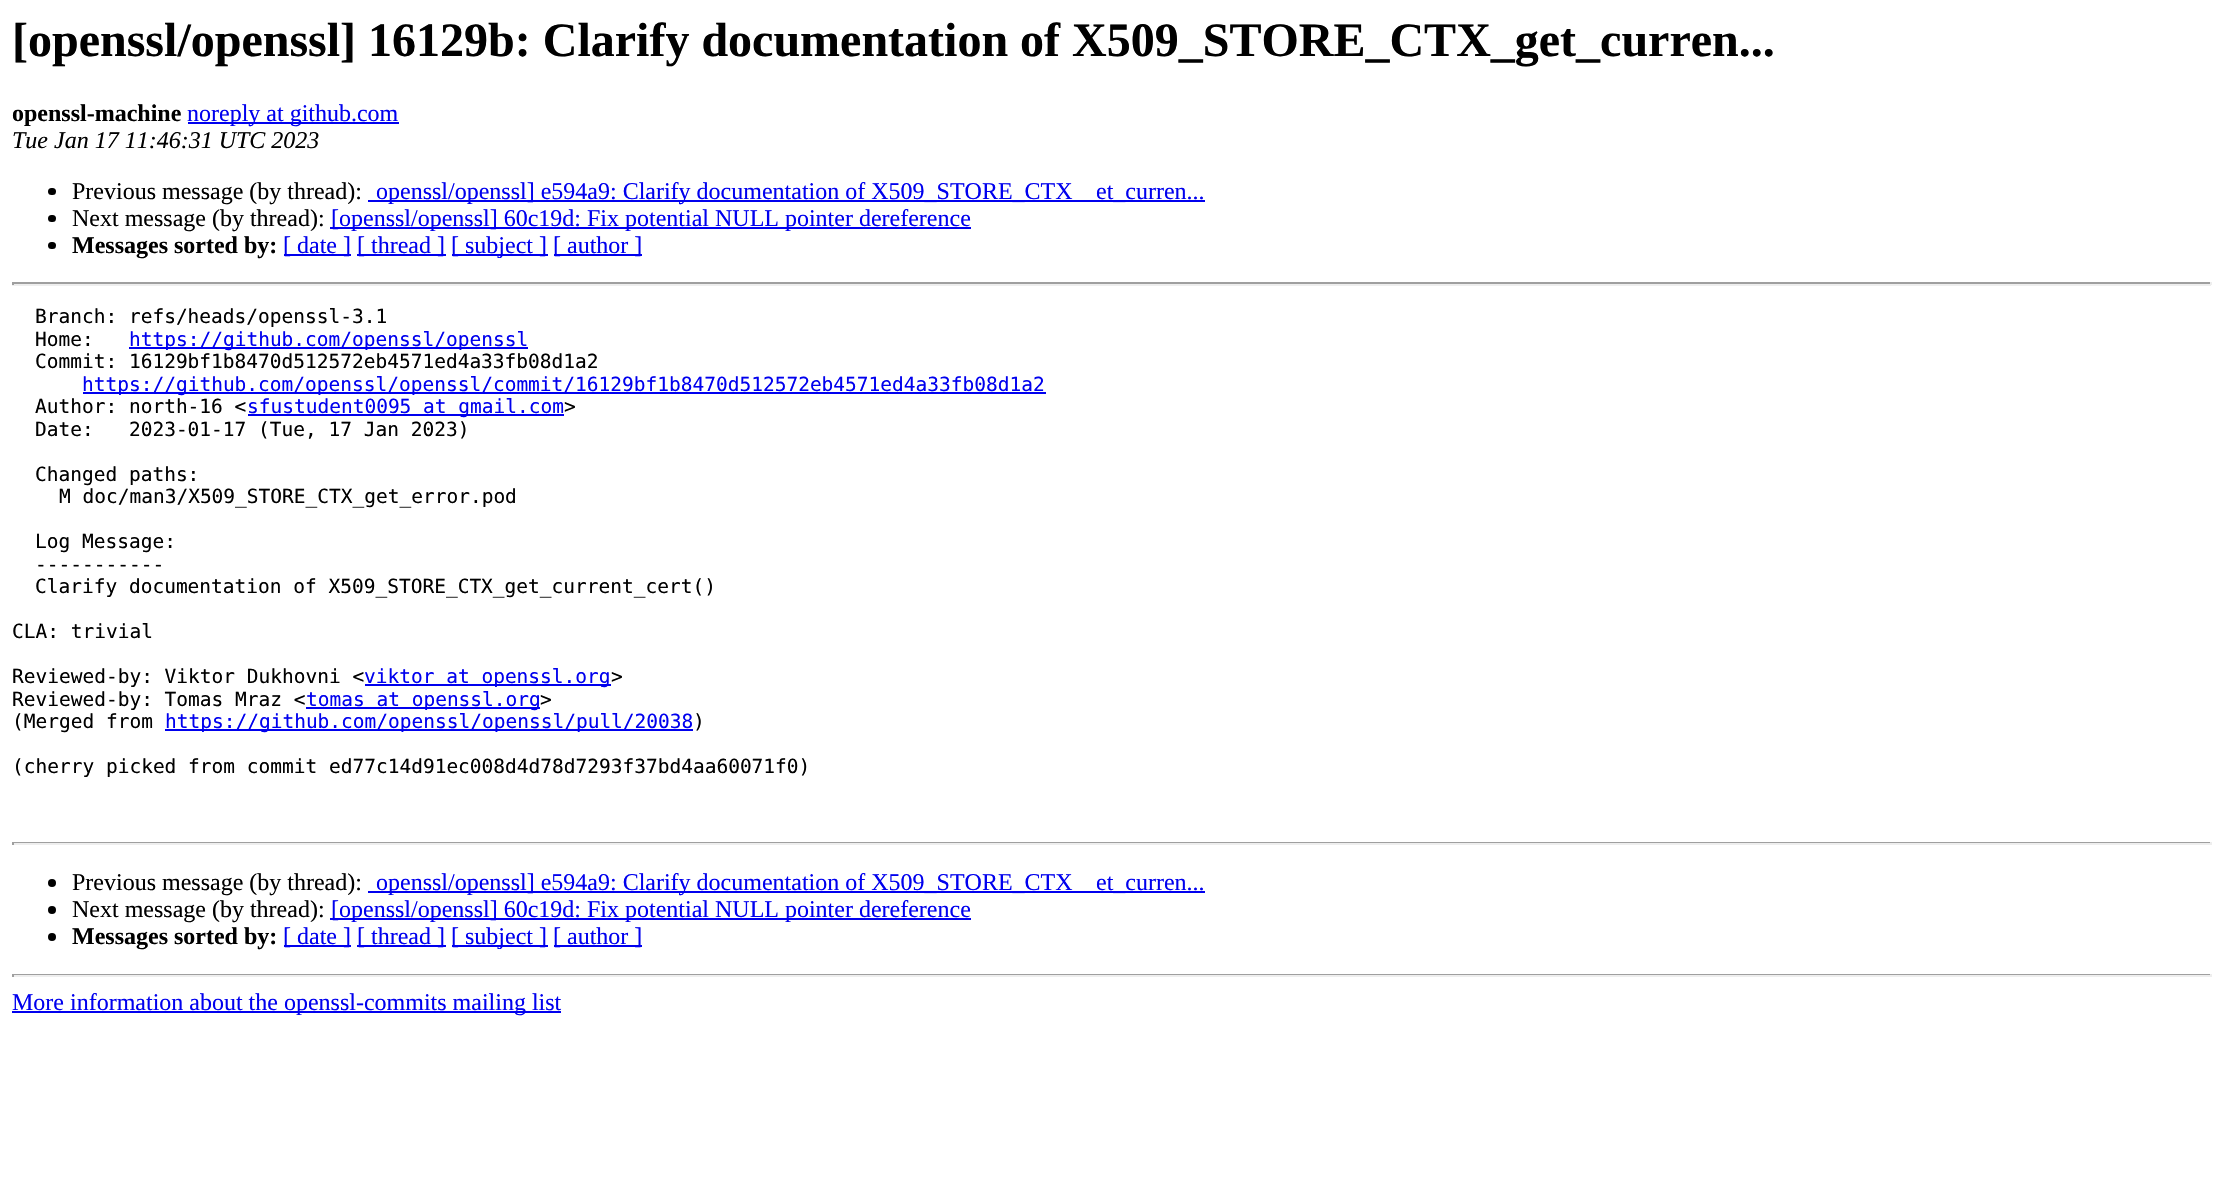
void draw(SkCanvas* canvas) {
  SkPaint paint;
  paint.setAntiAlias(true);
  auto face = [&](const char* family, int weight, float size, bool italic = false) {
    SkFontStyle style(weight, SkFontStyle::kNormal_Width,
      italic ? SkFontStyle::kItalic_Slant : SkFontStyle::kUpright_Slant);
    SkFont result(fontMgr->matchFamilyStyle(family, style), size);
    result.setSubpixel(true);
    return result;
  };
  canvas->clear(0xffffffff);
  paint.setColor(0xff0000ee);
  canvas->drawRect(SkRect::MakeXYWH(188, 122, 211, 2), paint);
  paint.setColor(0xff000000);
  canvas->drawRoundRect(SkRect::MakeXYWH(48, 188, 8, 7), 3.5f, 3.5f, paint);
  paint.setColor(0xff0000ee);
  canvas->drawRect(SkRect::MakeXYWH(368, 200, 837, 2), paint);
  paint.setColor(0xff000000);
  canvas->drawRoundRect(SkRect::MakeXYWH(48, 215, 8, 7), 3.5f, 3.5f, paint);
  paint.setColor(0xff0000ee);
  canvas->drawRect(SkRect::MakeXYWH(330, 227, 641, 2), paint);
  paint.setColor(0xff000000);
  canvas->drawRoundRect(SkRect::MakeXYWH(48, 242, 8, 7), 3.5f, 3.5f, paint);
  {
    const struct { float x, y, w, h; SkColor color; } items[] = {
      {284, 254, 67, 2, 0xff0000ee},
      {357, 254, 89, 2, 0xff0000ee},
      {452, 254, 96, 2, 0xff0000ee},
      {554, 254, 88, 2, 0xff0000ee},
      {12, 282, 2199, 2, 0xff9f9f9f},
      {2210, 282, 2, 3, 0xffeeeeee},
      {12, 284, 2199, 2, 0xffeeeeee},
      {12, 282, 2, 3, 0xff9f9f9f},
      {129, 347, 399, 2, 0xff0000ee},
      {83, 392, 963, 2, 0xff0000ee},
      {248, 414, 316, 2, 0xff0000ee},
      {365, 684, 246, 2, 0xff0000ee},
      {306, 707, 234, 2, 0xff0000ee},
      {165, 729, 528, 2, 0xff0000ee},
      {12, 842, 2199, 1, 0xff9f9f9f},
      {2210, 842, 2, 3, 0xffeeeeee},
      {12, 843, 2199, 2, 0xffeeeeee},
      {12, 842, 2, 3, 0xff9f9f9f},
    };
    for (auto [x, y, w, h, color] : items) {
      paint.setColor(color);
      canvas->drawRect(SkRect::MakeXYWH(x, y, w, h), paint);
    }
  }
  paint.setColor(0xff000000);
  canvas->drawCircle(52, 883, 4, paint);
  paint.setColor(0xff0000ee);
  canvas->drawRect(SkRect::MakeXYWH(368, 891, 837, 2), paint);
  paint.setColor(0xff000000);
  canvas->drawCircle(52, 910, 4, paint);
  paint.setColor(0xff0000ee);
  canvas->drawRect(SkRect::MakeXYWH(330, 918, 641, 2), paint);
  paint.setColor(0xff000000);
  canvas->drawCircle(52, 937, 4, paint);
  {
    const struct { float x, y, w, h; SkColor color; } items[] = {
      {284, 945, 67, 2, 0xff0000ee},
      {357, 945, 89, 2, 0xff0000ee},
      {452, 945, 96, 2, 0xff0000ee},
      {554, 945, 88, 2, 0xff0000ee},
      {12, 974, 2199, 1, 0xff9f9f9f},
      {2210, 974, 2, 3, 0xffeeeeee},
      {12, 975, 2199, 2, 0xffeeeeee},
      {12, 974, 2, 3, 0xff9f9f9f},
      {12, 1011, 549, 2, 0xff0000ee},
    };
    for (auto [x, y, w, h, color] : items) {
      paint.setColor(color);
      canvas->drawRect(SkRect::MakeXYWH(x, y, w, h), paint);
    }
  }
  auto f0 = face("Liberation Serif", 700, 48);
  paint.setColor(0xff000000);
  canvas->drawString("[openssl/openssl] 16129b: Clarify documentation of X509_STORE_CTX_get_curren...", 12, 56, f0, paint);
  auto f1 = face("Liberation Serif", 700, 24);
  canvas->drawString("openssl-machine", 12, 121, f1, paint);
  auto f2 = face("Liberation Serif", 400, 24);
  paint.setColor(0xff0000ee);
  canvas->drawString("noreply at github.com", 187, 121, f2, paint);
  auto f3 = face("Liberation Serif", 400, 24, true);
  paint.setColor(0xff000000);
  canvas->drawString("Tue Jan 17 11:46:31 UTC 2023", 12, 148, f3, paint);
  canvas->drawString("Previous message (by thread):", 72, 199, f2, paint);
  paint.setColor(0xff0000ee);
  canvas->drawString("openssl/openssl] e594a9: Clarify documentation of X509_STORE_CTX", 376, 199, f2, paint);
  canvas->drawString("et_curren...", 1096, 199, f2, paint);
  paint.setColor(0xff000000);
  canvas->drawString("Next message (by thread):", 72, 226, f2, paint);
  paint.setColor(0xff0000ee);
  canvas->drawString("[openssl/openssl] 60c19d: Fix potential NULL pointer dereference", 331, 226, f2, paint);
  paint.setColor(0xff000000);
  canvas->drawString("Messages sorted by:", 72, 253, f1, paint);
  paint.setColor(0xff0000ee);
  {
    const struct { const char* s; float x, y; } items[] = {
      {"[ date ]", 283, 253},
      {"[ thread ]", 357, 253},
      {"[ subject ]", 451, 253},
      {"[ author ]", 553, 253},
    };
    for (auto [s, x, y] : items) {
      canvas->drawString(s, x, y, f2, paint);
    }
  }
  auto f4 = face("DejaVu Sans Mono", 400, 19.5f);
  paint.setColor(0xff000000);
  canvas->drawString("Branch: refs/heads/openssl-3.1", 35, 323, f4, paint);
  canvas->drawString("Home:", 35, 346, f4, paint);
  paint.setColor(0xff0000ee);
  canvas->drawString("https://github.com/openssl/openssl", 129, 346, f4, paint);
  paint.setColor(0xff000000);
  canvas->drawString("Commit: 16129bf1b8470d512572eb4571ed4a33fb08d1a2", 35, 368, f4, paint);
  paint.setColor(0xff0000ee);
  canvas->drawString("https://github.com/openssl/openssl/commit/16129bf1b8470d512572eb4571ed4a33fb08d1a2", 82, 391, f4, paint);
  paint.setColor(0xff000000);
  canvas->drawString("Author: north-16 <", 35, 413, f4, paint);
  paint.setColor(0xff0000ee);
  canvas->drawString("sfustudent0095 at gmail.com", 247, 413, f4, paint);
  paint.setColor(0xff000000);
  {
    const struct { const char* s; float x, y; } items[] = {
      {">", 564, 413},
      {"Date:   2023-01-17 (Tue, 17 Jan 2023)", 35, 436},
      {"Changed paths:", 35, 481},
      {"M doc/man3/X509_STORE_CTX_get_error.pod", 59, 503},
      {"Log Message:", 35, 548},
      {"-----------", 35, 571},
      {"Clarify documentation of X509_STORE_CTX_get_current_cert()", 35, 593},
      {"CLA: trivial", 12, 638},
      {"Reviewed-by: Viktor Dukhovni <", 12, 683},
    };
    for (auto [s, x, y] : items) {
      canvas->drawString(s, x, y, f4, paint);
    }
  }
  paint.setColor(0xff0000ee);
  canvas->drawString("viktor at openssl.org", 364, 683, f4, paint);
  paint.setColor(0xff000000);
  canvas->drawString(">", 611, 683, f4, paint);
  canvas->drawString("Reviewed-by: Tomas Mraz <", 12, 706, f4, paint);
  paint.setColor(0xff0000ee);
  canvas->drawString("tomas at openssl.org", 306, 706, f4, paint);
  paint.setColor(0xff000000);
  canvas->drawString(">", 540, 706, f4, paint);
  canvas->drawString("(Merged from", 12, 728, f4, paint);
  paint.setColor(0xff0000ee);
  canvas->drawString("https://github.com/openssl/openssl/pull/20038", 165, 728, f4, paint);
  paint.setColor(0xff000000);
  canvas->drawString(")", 693, 728, f4, paint);
  canvas->drawString("(cherry picked from commit ed77c14d91ec008d4d78d7293f37bd4aa60071f0)", 12, 773, f4, paint);
  canvas->drawString("Previous message (by thread):", 72, 890, f2, paint);
  paint.setColor(0xff0000ee);
  canvas->drawString("openssl/openssl] e594a9: Clarify documentation of X509_STORE_CTX", 376, 890, f2, paint);
  canvas->drawString("et_curren...", 1096, 890, f2, paint);
  paint.setColor(0xff000000);
  canvas->drawString("Next message (by thread):", 72, 917, f2, paint);
  paint.setColor(0xff0000ee);
  canvas->drawString("[openssl/openssl] 60c19d: Fix potential NULL pointer dereference", 331, 917, f2, paint);
  paint.setColor(0xff000000);
  canvas->drawString("Messages sorted by:", 72, 944, f1, paint);
  paint.setColor(0xff0000ee);
  {
    const struct { const char* s; float x, y; } items[] = {
      {"[ date ]", 283, 944},
      {"[ thread ]", 357, 944},
      {"[ subject ]", 451, 944},
      {"[ author ]", 553, 944},
      {"More information about the openssl-commits mailing list", 12, 1010},
    };
    for (auto [s, x, y] : items) {
      canvas->drawString(s, x, y, f2, paint);
    }
  }
}
